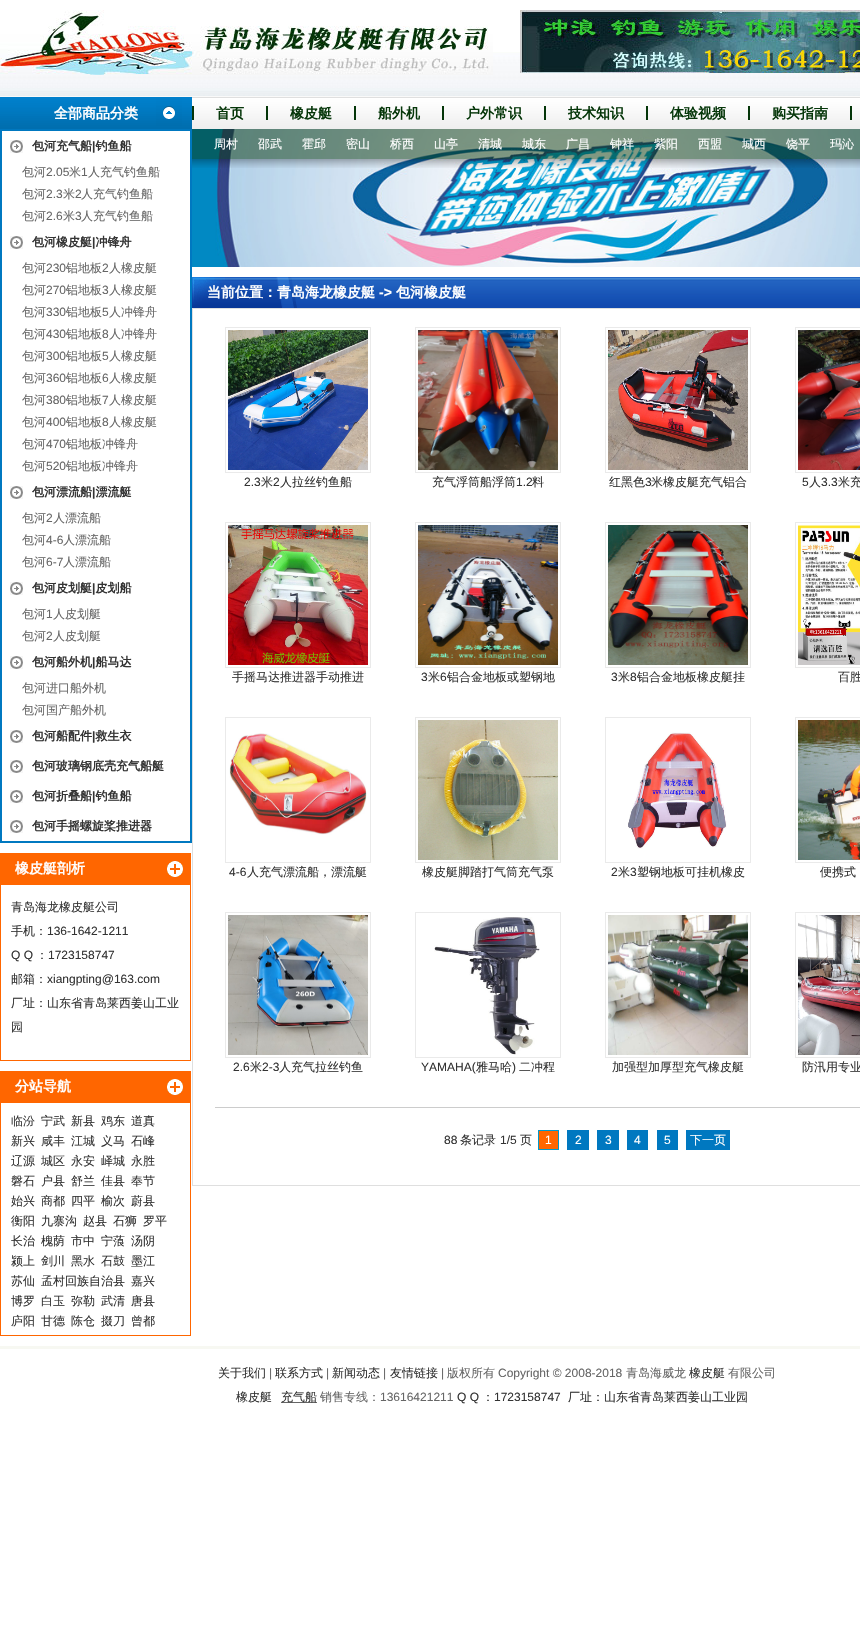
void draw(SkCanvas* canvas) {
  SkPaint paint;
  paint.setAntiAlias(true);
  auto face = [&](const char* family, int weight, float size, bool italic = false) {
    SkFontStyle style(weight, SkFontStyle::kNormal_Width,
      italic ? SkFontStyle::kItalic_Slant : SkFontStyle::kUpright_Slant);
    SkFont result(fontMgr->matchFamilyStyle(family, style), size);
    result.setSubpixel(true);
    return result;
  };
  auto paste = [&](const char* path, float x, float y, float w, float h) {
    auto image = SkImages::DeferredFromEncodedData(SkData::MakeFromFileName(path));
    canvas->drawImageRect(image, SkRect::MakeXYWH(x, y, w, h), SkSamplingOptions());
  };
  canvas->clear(0xffffffff);
  paste("img/1.png", 0, 52, 860, 77);
  paste("img/2.png", 0, 10, 493, 65);
  paste("img/3.png", 520, 10, 340, 63);
  paste("img/4.png", 0, 97, 192, 32);
  {
    const struct { float x, y, w, h; SkColor color; } items[] = {
      {192, 106, 2, 14, 0xff053609},
      {266, 106, 2, 14, 0xff053609},
      {354, 106, 2, 14, 0xff053609},
      {442, 106, 2, 14, 0xff053609},
      {544, 106, 2, 14, 0xff053609},
      {646, 106, 2, 14, 0xff053609},
      {748, 106, 2, 14, 0xff053609},
      {850, 106, 2, 14, 0xff053609},
    };
    for (auto [x, y, w, h, color] : items) {
      paint.setColor(color);
      canvas->drawRect(SkRect::MakeXYWH(x, y, w, h), paint);
    }
  }
  paint.setStroke(true);
  paint.setStrokeWidth(2);
  paint.setColor(0xff0078c0);
  canvas->drawRect(SkRect::MakeXYWH(1, 130, 190, 712), paint);
  paste("img/5.png", 10, 140, 13, 13);
  paste("img/5.png", 10, 236, 13, 13);
  paste("img/5.png", 10, 486, 13, 13);
  paste("img/5.png", 10, 582, 13, 13);
  paste("img/5.png", 10, 656, 13, 13);
  paste("img/5.png", 10, 730, 13, 13);
  paste("img/5.png", 10, 760, 13, 13);
  paste("img/5.png", 10, 790, 13, 13);
  paste("img/5.png", 10, 820, 13, 13);
  paste("img/6.png", 0, 853, 191, 31);
  paint.setStrokeWidth(1);
  paint.setColor(0xffff6600);
  canvas->drawRect(SkRect::MakeXYWH(0.5f, 884.5f, 190, 176), paint);
  paste("img/6.png", 0, 1071, 191, 31);
  canvas->drawRect(SkRect::MakeXYWH(0.5f, 1102.5f, 190, 233), paint);
  paste("img/7.png", 192, 129, 668, 138);
  paste("img/8.png", 192, 129, 668, 39);
  paste("img/9.png", 192, 277, 668, 31);
  paint.setColor(0xffdfdfdf);
  canvas->drawRect(SkRect::MakeXYWH(192.5f, 308.5f, 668, 877), paint);
  paint.setColor(0xffeaeaea);
  canvas->drawRect(SkRect::MakeXYWH(225.5f, 327.5f, 145, 145), paint);
  paste("img/10.png", 228, 330, 140, 140);
  canvas->drawRect(SkRect::MakeXYWH(415.5f, 327.5f, 145, 145), paint);
  paste("img/11.png", 418, 330, 140, 140);
  canvas->drawRect(SkRect::MakeXYWH(605.5f, 327.5f, 145, 145), paint);
  paste("img/12.png", 608, 330, 140, 140);
  canvas->drawRect(SkRect::MakeXYWH(795.5f, 327.5f, 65, 145), paint);
  paste("img/13.png", 798, 330, 62, 140);
  canvas->drawRect(SkRect::MakeXYWH(225.5f, 522.5f, 145, 145), paint);
  paste("img/14.png", 228, 525, 140, 140);
  canvas->drawRect(SkRect::MakeXYWH(415.5f, 522.5f, 145, 145), paint);
  paste("img/15.png", 418, 525, 140, 140);
  canvas->drawRect(SkRect::MakeXYWH(605.5f, 522.5f, 145, 145), paint);
  paste("img/16.png", 608, 525, 140, 140);
  canvas->drawRect(SkRect::MakeXYWH(795.5f, 522.5f, 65, 145), paint);
  paste("img/17.png", 798, 525, 62, 140);
  canvas->drawRect(SkRect::MakeXYWH(225.5f, 717.5f, 145, 145), paint);
  paste("img/18.png", 229, 733, 138, 102);
  canvas->drawRect(SkRect::MakeXYWH(415.5f, 717.5f, 145, 145), paint);
  paste("img/19.png", 418, 720, 140, 140);
  canvas->drawRect(SkRect::MakeXYWH(605.5f, 717.5f, 145, 145), paint);
  paste("img/20.png", 628, 732, 99, 117);
  canvas->drawRect(SkRect::MakeXYWH(795.5f, 717.5f, 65, 145), paint);
  paste("img/21.png", 798, 720, 62, 140);
  canvas->drawRect(SkRect::MakeXYWH(225.5f, 912.5f, 145, 145), paint);
  paste("img/22.png", 228, 915, 140, 140);
  canvas->drawRect(SkRect::MakeXYWH(415.5f, 912.5f, 145, 145), paint);
  paste("img/23.png", 434, 917, 106, 138);
  canvas->drawRect(SkRect::MakeXYWH(605.5f, 912.5f, 145, 145), paint);
  paste("img/24.png", 608, 915, 140, 140);
  canvas->drawRect(SkRect::MakeXYWH(795.5f, 912.5f, 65, 145), paint);
  paste("img/25.png", 798, 915, 62, 140);
  paint.setStroke(false);
  paint.setColor(0xffcccccc);
  canvas->drawRect(SkRect::MakeXYWH(215, 1107, 645, 1), paint);
  paint.setColor(0xffff6600);
  canvas->drawRect(SkRect::MakeXYWH(538.5f, 1130.5f, 20, 19), paint);
  paint.setStroke(true);
  paint.setColor(0xff0099cc);
  canvas->drawRect(SkRect::MakeXYWH(538.5f, 1130.5f, 20, 19), paint);
  paint.setStroke(false);
  {
    const struct { float x, y, w, h; SkColor color; } items[] = {
      {567, 1130, 22, 20, 0xff0078c0},
      {597, 1130, 22, 20, 0xff0078c0},
      {627, 1130, 21, 20, 0xff0078c0},
      {657, 1130, 21, 20, 0xff0078c0},
      {686, 1130, 44, 20, 0xff0078c0},
      {0, 1346, 860, 3, 0xfff7f8f2},
      {281, 1402, 36, 1, 0xff666666},
    };
    for (auto [x, y, w, h, color] : items) {
      paint.setColor(color);
      canvas->drawRect(SkRect::MakeXYWH(x, y, w, h), paint);
    }
  }
  auto f0 = face("WenQuanYi Zen Hei", 700, 14);
  paint.setColor(0xffffffff);
  canvas->drawString("全部商品分类", 54, 118, f0, paint);
  paint.setColor(0xff053609);
  {
    const struct { const char* s; float x, y; } items[] = {
      {"首页", 216, 118},
      {"橡皮艇", 290, 118},
      {"船外机", 378, 118},
      {"户外常识", 466, 118},
      {"技术知识", 568, 118},
      {"体验视频", 670, 118},
      {"购买指南", 772, 118},
    };
    for (auto [s, x, y] : items) {
      canvas->drawString(s, x, y, f0, paint);
    }
  }
  auto f1 = face("WenQuanYi Zen Hei", 700, 12);
  paint.setColor(0xff333333);
  canvas->drawString("包河充气船 钓鱼船", 32, 150, f1, paint);
  auto f2 = face("Liberation Sans", 700, 12);
  canvas->drawString("|", 92, 150, f2, paint);
  auto f3 = face("WenQuanYi Zen Hei", 500, 12);
  paint.setColor(0xff666666);
  canvas->drawString("包河", 22, 176, f3, paint);
  auto f4 = face("Liberation Sans", 400, 12);
  canvas->drawString("2.05", 46, 176, f4, paint);
  canvas->drawString("米", 69, 176, f3, paint);
  canvas->drawString("1", 81, 176, f4, paint);
  canvas->drawString("人充气钓鱼船", 88, 176, f3, paint);
  canvas->drawString("包河", 22, 198, f3, paint);
  canvas->drawString("2.3", 46, 198, f4, paint);
  canvas->drawString("米", 63, 198, f3, paint);
  canvas->drawString("2", 75, 198, f4, paint);
  canvas->drawString("人充气钓鱼船", 81, 198, f3, paint);
  canvas->drawString("包河", 22, 220, f3, paint);
  canvas->drawString("2.6", 46, 220, f4, paint);
  canvas->drawString("米", 63, 220, f3, paint);
  canvas->drawString("3", 75, 220, f4, paint);
  canvas->drawString("人充气钓鱼船", 81, 220, f3, paint);
  paint.setColor(0xff333333);
  canvas->drawString("包河橡皮艇 冲锋舟", 32, 246, f1, paint);
  canvas->drawString("|", 92, 246, f2, paint);
  paint.setColor(0xff666666);
  canvas->drawString("包河", 22, 272, f3, paint);
  canvas->drawString("230", 46, 272, f4, paint);
  canvas->drawString("铝地板", 66, 272, f3, paint);
  canvas->drawString("2", 102, 272, f4, paint);
  canvas->drawString("人橡皮艇", 109, 272, f3, paint);
  canvas->drawString("包河", 22, 294, f3, paint);
  canvas->drawString("270", 46, 294, f4, paint);
  canvas->drawString("铝地板", 66, 294, f3, paint);
  canvas->drawString("3", 102, 294, f4, paint);
  canvas->drawString("人橡皮艇", 109, 294, f3, paint);
  canvas->drawString("包河", 22, 316, f3, paint);
  canvas->drawString("330", 46, 316, f4, paint);
  canvas->drawString("铝地板", 66, 316, f3, paint);
  canvas->drawString("5", 102, 316, f4, paint);
  canvas->drawString("人冲锋舟", 109, 316, f3, paint);
  canvas->drawString("包河", 22, 338, f3, paint);
  canvas->drawString("430", 46, 338, f4, paint);
  canvas->drawString("铝地板", 66, 338, f3, paint);
  canvas->drawString("8", 102, 338, f4, paint);
  canvas->drawString("人冲锋舟", 109, 338, f3, paint);
  canvas->drawString("包河", 22, 360, f3, paint);
  canvas->drawString("300", 46, 360, f4, paint);
  canvas->drawString("铝地板", 66, 360, f3, paint);
  canvas->drawString("5", 102, 360, f4, paint);
  canvas->drawString("人橡皮艇", 109, 360, f3, paint);
  canvas->drawString("包河", 22, 382, f3, paint);
  canvas->drawString("360", 46, 382, f4, paint);
  canvas->drawString("铝地板", 66, 382, f3, paint);
  canvas->drawString("6", 102, 382, f4, paint);
  canvas->drawString("人橡皮艇", 109, 382, f3, paint);
  canvas->drawString("包河", 22, 404, f3, paint);
  canvas->drawString("380", 46, 404, f4, paint);
  canvas->drawString("铝地板", 66, 404, f3, paint);
  canvas->drawString("7", 102, 404, f4, paint);
  canvas->drawString("人橡皮艇", 109, 404, f3, paint);
  canvas->drawString("包河", 22, 426, f3, paint);
  canvas->drawString("400", 46, 426, f4, paint);
  canvas->drawString("铝地板", 66, 426, f3, paint);
  canvas->drawString("8", 102, 426, f4, paint);
  canvas->drawString("人橡皮艇", 109, 426, f3, paint);
  canvas->drawString("包河", 22, 448, f3, paint);
  canvas->drawString("470", 46, 448, f4, paint);
  canvas->drawString("铝地板冲锋舟", 66, 448, f3, paint);
  canvas->drawString("包河", 22, 470, f3, paint);
  canvas->drawString("520", 46, 470, f4, paint);
  canvas->drawString("铝地板冲锋舟", 66, 470, f3, paint);
  paint.setColor(0xff333333);
  canvas->drawString("包河漂流船 漂流艇", 32, 496, f1, paint);
  canvas->drawString("|", 92, 496, f2, paint);
  paint.setColor(0xff666666);
  canvas->drawString("包河", 22, 522, f3, paint);
  canvas->drawString("2", 46, 522, f4, paint);
  canvas->drawString("人漂流船", 53, 522, f3, paint);
  canvas->drawString("包河", 22, 544, f3, paint);
  canvas->drawString("4-6", 46, 544, f4, paint);
  canvas->drawString("人漂流船", 63, 544, f3, paint);
  canvas->drawString("包河", 22, 566, f3, paint);
  canvas->drawString("6-7", 46, 566, f4, paint);
  canvas->drawString("人漂流船", 63, 566, f3, paint);
  paint.setColor(0xff333333);
  canvas->drawString("包河皮划艇 皮划船", 32, 592, f1, paint);
  canvas->drawString("|", 92, 592, f2, paint);
  paint.setColor(0xff666666);
  canvas->drawString("包河", 22, 618, f3, paint);
  canvas->drawString("1", 46, 618, f4, paint);
  canvas->drawString("人皮划艇", 53, 618, f3, paint);
  canvas->drawString("包河", 22, 640, f3, paint);
  canvas->drawString("2", 46, 640, f4, paint);
  canvas->drawString("人皮划艇", 53, 640, f3, paint);
  paint.setColor(0xff333333);
  canvas->drawString("包河船外机 船马达", 32, 666, f1, paint);
  canvas->drawString("|", 92, 666, f2, paint);
  paint.setColor(0xff666666);
  canvas->drawString("包河进口船外机", 22, 692, f3, paint);
  canvas->drawString("包河国产船外机", 22, 714, f3, paint);
  paint.setColor(0xff333333);
  canvas->drawString("包河船配件 救生衣", 32, 740, f1, paint);
  canvas->drawString("|", 92, 740, f2, paint);
  canvas->drawString("包河玻璃钢底壳充气船艇", 32, 770, f1, paint);
  canvas->drawString("包河折叠船 钓鱼船", 32, 800, f1, paint);
  canvas->drawString("|", 92, 800, f2, paint);
  canvas->drawString("包河手摇螺旋桨推进器", 32, 830, f1, paint);
  paint.setColor(0xffffffff);
  canvas->drawString("橡皮艇剖析", 15, 873, f0, paint);
  paint.setColor(0xff333333);
  canvas->drawString("青岛海龙橡皮艇公司", 11, 911, f3, paint);
  canvas->drawString("手机：", 11, 935, f3, paint);
  canvas->drawString("136-1642-1211", 47, 935, f4, paint);
  canvas->drawString("Q Q", 11, 959, f4, paint);
  canvas->drawString("：", 36, 959, f3, paint);
  canvas->drawString("1723158747", 48, 959, f4, paint);
  canvas->drawString("邮箱：", 11, 983, f3, paint);
  canvas->drawString("xiangpting@163.com", 47, 983, f4, paint);
  canvas->drawString("厂址：山东省青岛莱西姜山工业", 11, 1007, f3, paint);
  canvas->drawString("园", 11, 1031, f3, paint);
  paint.setColor(0xffffffff);
  canvas->drawString("分站导航", 15, 1091, f0, paint);
  paint.setColor(0xff333333);
  {
    const struct { const char* s; float x, y; } items[] = {
      {"临汾", 11, 1125},
      {"宁武", 41, 1125},
      {"新县", 71, 1125},
      {"鸡东", 101, 1125},
      {"道真", 131, 1125},
      {"新兴", 11, 1145},
      {"咸丰", 41, 1145},
      {"江城", 71, 1145},
      {"义马", 101, 1145},
      {"石峰", 131, 1145},
      {"辽源", 11, 1165},
      {"城区", 41, 1165},
      {"永安", 71, 1165},
      {"峄城", 101, 1165},
      {"永胜", 131, 1165},
      {"磐石", 11, 1185},
      {"户县", 41, 1185},
      {"舒兰", 71, 1185},
      {"佳县", 101, 1185},
      {"奉节", 131, 1185},
      {"始兴", 11, 1205},
      {"商都", 41, 1205},
      {"四平", 71, 1205},
      {"榆次", 101, 1205},
      {"蔚县", 131, 1205},
      {"衡阳", 11, 1225},
      {"九寨沟", 41, 1225},
      {"赵县", 83, 1225},
      {"石狮", 113, 1225},
      {"罗平", 143, 1225},
      {"长治", 11, 1245},
      {"槐荫", 41, 1245},
      {"市中", 71, 1245},
      {"宁蒗", 101, 1245},
      {"汤阴", 131, 1245},
      {"颍上", 11, 1265},
      {"剑川", 41, 1265},
      {"黑水", 71, 1265},
      {"石鼓", 101, 1265},
      {"墨江", 131, 1265},
      {"苏仙", 11, 1285},
      {"孟村回族自治县", 41, 1285},
      {"嘉兴", 131, 1285},
      {"博罗", 11, 1305},
      {"白玉", 41, 1305},
      {"弥勒", 71, 1305},
      {"武清", 101, 1305},
      {"唐县", 131, 1305},
      {"庐阳", 11, 1325},
      {"甘德", 41, 1325},
      {"陈仓", 71, 1325},
      {"掇刀", 101, 1325},
      {"曾都", 131, 1325},
    };
    for (auto [s, x, y] : items) {
      canvas->drawString(s, x, y, f3, paint);
    }
  }
  paint.setColor(0xffffffff);
  {
    const struct { const char* s; float x, y; } items[] = {
      {"周村", 214, 148},
      {"邵武", 258, 148},
      {"霍邱", 302, 148},
      {"密山", 346, 148},
      {"桥西", 390, 148},
      {"山亭", 434, 148},
      {"清城", 478, 148},
      {"城东", 522, 148},
      {"广昌", 566, 148},
      {"钟祥", 610, 148},
      {"紫阳", 654, 148},
      {"西盟", 698, 148},
      {"城西", 742, 148},
      {"饶平", 786, 148},
      {"玛沁", 830, 148},
    };
    for (auto [s, x, y] : items) {
      canvas->drawString(s, x, y, f3, paint);
    }
  }
  canvas->drawString("当前位置：青岛海龙橡皮艇", 207, 297, f0, paint);
  auto f5 = face("Liberation Sans", 700, 14);
  canvas->drawString("->", 379, 297, f5, paint);
  canvas->drawString("包河橡皮艇", 396, 297, f0, paint);
  paint.setColor(0xff333333);
  canvas->drawString("2.3", 244, 486, f4, paint);
  canvas->drawString("米", 261, 486, f3, paint);
  canvas->drawString("2", 273, 486, f4, paint);
  canvas->drawString("人拉丝钓鱼船", 280, 486, f3, paint);
  canvas->drawString("充气浮筒船浮筒", 432, 486, f3, paint);
  canvas->drawString("1.2", 516, 486, f4, paint);
  canvas->drawString("料", 532, 486, f3, paint);
  canvas->drawString("红黑色", 609, 486, f3, paint);
  canvas->drawString("3", 645, 486, f4, paint);
  canvas->drawString("米橡皮艇充气铝合", 651, 486, f3, paint);
  canvas->drawString("5", 802, 486, f4, paint);
  canvas->drawString("人", 809, 486, f3, paint);
  canvas->drawString("3.3", 821, 486, f4, paint);
  canvas->drawString("米充", 838, 486, f3, paint);
  canvas->drawString("手摇马达推进器手动推进", 232, 681, f3, paint);
  canvas->drawString("3", 421, 681, f4, paint);
  canvas->drawString("米", 428, 681, f3, paint);
  canvas->drawString("6", 440, 681, f4, paint);
  canvas->drawString("铝合金地板或塑钢地", 447, 681, f3, paint);
  canvas->drawString("3", 611, 681, f4, paint);
  canvas->drawString("米", 618, 681, f3, paint);
  canvas->drawString("8", 630, 681, f4, paint);
  canvas->drawString("铝合金地板橡皮艇挂", 637, 681, f3, paint);
  canvas->drawString("百胜", 838, 681, f3, paint);
  canvas->drawString("4-6", 229, 876, f4, paint);
  canvas->drawString("人充气漂流船，漂流艇", 247, 876, f3, paint);
  canvas->drawString("橡皮艇脚踏打气筒充气泵", 422, 876, f3, paint);
  canvas->drawString("2", 611, 876, f4, paint);
  canvas->drawString("米", 618, 876, f3, paint);
  canvas->drawString("3", 630, 876, f4, paint);
  canvas->drawString("塑钢地板可挂机橡皮", 637, 876, f3, paint);
  canvas->drawString("便携式", 820, 876, f3, paint);
  canvas->drawString("2.6", 233, 1071, f4, paint);
  canvas->drawString("米", 250, 1071, f3, paint);
  canvas->drawString("2-3", 262, 1071, f4, paint);
  canvas->drawString("人充气拉丝钓鱼", 279, 1071, f3, paint);
  canvas->drawString("YAMAHA(", 421, 1071, f4, paint);
  canvas->drawString("雅马哈", 476, 1071, f3, paint);
  canvas->drawString(")", 512, 1071, f4, paint);
  {
    const struct { const char* s; float x, y; } items[] = {
      {"二冲程", 519, 1071},
      {"加强型加厚型充气橡皮艇", 612, 1071},
      {"防汛用专业", 802, 1071},
    };
    for (auto [s, x, y] : items) {
      canvas->drawString(s, x, y, f3, paint);
    }
  }
  canvas->drawString("88", 444, 1144, f4, paint);
  canvas->drawString("条记录", 460, 1144, f3, paint);
  canvas->drawString("1/5", 500, 1144, f4, paint);
  canvas->drawString("页", 520, 1144, f3, paint);
  paint.setColor(0xffffffff);
  {
    const struct { const char* s; float x, y; } items[] = {
      {"1", 545, 1144},
      {"2", 575, 1144},
      {"3", 605, 1144},
      {"4", 634, 1144},
      {"5", 664, 1144},
    };
    for (auto [s, x, y] : items) {
      canvas->drawString(s, x, y, f4, paint);
    }
  }
  canvas->drawString("下一页", 690, 1144, f3, paint);
  paint.setColor(0xff333333);
  canvas->drawString("关于我们", 218, 1377, f3, paint);
  paint.setColor(0xff666666);
  canvas->drawString("|", 269, 1377, f4, paint);
  paint.setColor(0xff333333);
  canvas->drawString("联系方式", 275, 1377, f3, paint);
  paint.setColor(0xff666666);
  canvas->drawString("|", 326, 1377, f4, paint);
  paint.setColor(0xff333333);
  canvas->drawString("新闻动态", 332, 1377, f3, paint);
  paint.setColor(0xff666666);
  canvas->drawString("|", 383, 1377, f4, paint);
  paint.setColor(0xff333333);
  canvas->drawString("友情链接", 390, 1377, f3, paint);
  paint.setColor(0xff666666);
  canvas->drawString("|", 441, 1377, f4, paint);
  canvas->drawString("版权所有", 447, 1377, f3, paint);
  canvas->drawString("Copyright © 2008-2018", 498, 1377, f4, paint);
  canvas->drawString("青岛海威龙", 626, 1377, f3, paint);
  paint.setColor(0xff333333);
  canvas->drawString("橡皮艇", 689, 1377, f3, paint);
  paint.setColor(0xff666666);
  canvas->drawString("有限公司", 728, 1377, f3, paint);
  paint.setColor(0xff333333);
  canvas->drawString("橡皮艇", 236, 1401, f3, paint);
  canvas->drawString("充气船", 281, 1401, f3, paint);
  paint.setColor(0xff666666);
  canvas->drawString("销售专线：", 320, 1401, f3, paint);
  canvas->drawString("13616421211", 380, 1401, f4, paint);
  paint.setColor(0xff333333);
  canvas->drawString("Q Q", 457, 1401, f4, paint);
  canvas->drawString("：", 482, 1401, f3, paint);
  canvas->drawString("1723158747", 494, 1401, f4, paint);
  canvas->drawString("厂址：山东省青岛莱西姜山工业园", 568, 1401, f3, paint);
}
